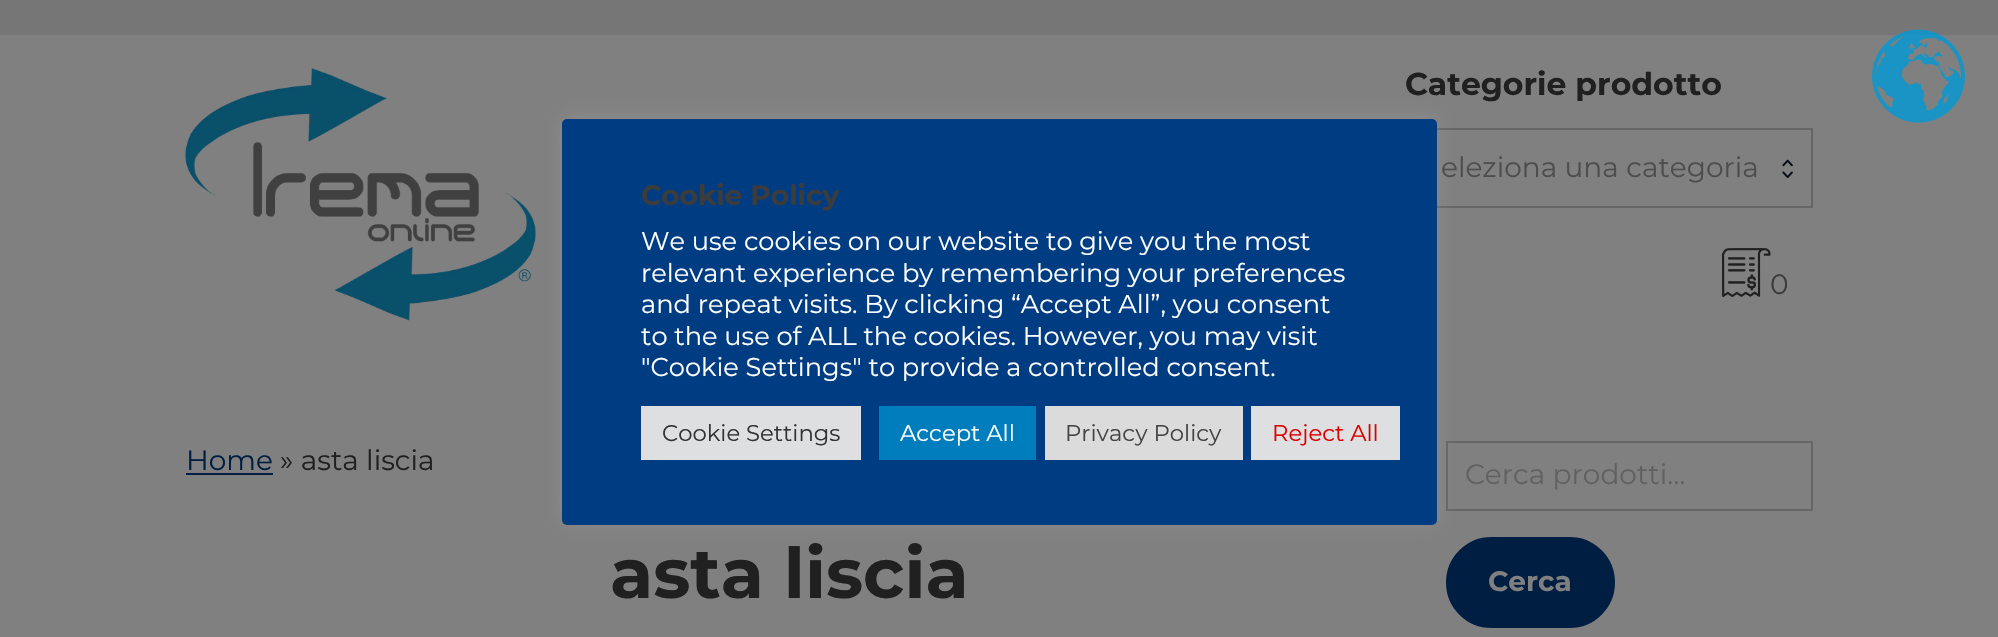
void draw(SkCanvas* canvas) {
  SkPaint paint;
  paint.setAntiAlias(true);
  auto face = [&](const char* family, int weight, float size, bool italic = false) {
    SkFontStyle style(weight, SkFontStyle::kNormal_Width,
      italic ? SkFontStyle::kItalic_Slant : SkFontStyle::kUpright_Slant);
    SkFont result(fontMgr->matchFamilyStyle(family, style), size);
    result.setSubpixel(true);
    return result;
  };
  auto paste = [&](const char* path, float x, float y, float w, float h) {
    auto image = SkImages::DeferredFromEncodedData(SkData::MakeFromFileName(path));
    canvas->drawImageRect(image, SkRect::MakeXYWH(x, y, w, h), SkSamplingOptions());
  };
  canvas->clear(0xff808080);
  paint.setColor(0xff767676);
  canvas->drawRect(SkRect::MakeXYWH(0, 0, 1998, 35), paint);
  paste("img/1.png", 185, 68, 351, 253);
  paint.setStroke(true);
  paint.setStrokeWidth(2);
  paint.setColor(0xff666666);
  canvas->drawRect(SkRect::MakeXYWH(1406, 129, 406, 78), paint);
  paste("img/2.png", 1782, 159, 11, 19);
  paste("img/3.png", 1722, 248, 49, 50);
  paint.setStroke(false);
  paint.setColor(0xff001e41);
  canvas->drawRect(SkRect::MakeXYWH(186, 473, 87, 2), paint);
  paint.setStroke(true);
  paint.setColor(0xff666666);
  canvas->drawRect(SkRect::MakeXYWH(1447, 442, 365, 68), paint);
  paint.setStroke(false);
  paint.setColor(0xff001e41);
  canvas->drawRoundRect(SkRect::MakeXYWH(1447, 538, 167, 89), 44.5f, 44.5f, paint);
  paint.setStroke(true);
  canvas->drawRoundRect(SkRect::MakeXYWH(1447, 538, 167, 89), 44.5f, 44.5f, paint);
  paste("img/4.png", 1872, 29, 93, 94);
  paint.setStroke(false);
  paint.setColor(0x4dacabab);
  paint.setMaskFilter(SkMaskFilter::MakeBlur(kNormal_SkBlurStyle, 9));
  canvas->drawRoundRect(SkRect::MakeXYWH(562, 117, 875, 406), 5, 5, paint);
  paint.setMaskFilter(nullptr);
  paint.setColor(0xff003c82);
  canvas->drawRoundRect(SkRect::MakeXYWH(562, 119, 875, 406), 5, 5, paint);
  {
    const struct { float x, y, w, h; SkColor color; } items[] = {
      {641, 406, 220, 54, 0xffdedfe0},
      {879, 406, 157, 54, 0xff007dbc},
      {1045, 406, 198, 54, 0xffdbdbdb},
      {1251, 406, 149, 54, 0xffdedfe0},
    };
    for (auto [x, y, w, h, color] : items) {
      paint.setColor(color);
      canvas->drawRect(SkRect::MakeXYWH(x, y, w, h), paint);
    }
  }
  auto f0 = face("Montserrat", 700, 31.5f);
  paint.setColor(0xff202020);
  canvas->drawString("Categorie prodotto", 1405, 95, f0, paint);
  auto f1 = face("Montserrat", 400, 28);
  paint.setColor(0xff4d4d4d);
  canvas->drawString("eleziona una categoria", 1441, 177, f1, paint);
  paint.setColor(0xff3c3c3c);
  canvas->drawString("0", 1770, 294, f1, paint);
  paint.setColor(0xff001e41);
  canvas->drawString("Home", 186, 470, f1, paint);
  paint.setColor(0xff202020);
  canvas->drawString("» asta liscia", 280, 470, f1, paint);
  auto f2 = face("Montserrat", 700, 70);
  canvas->drawString("asta liscia", 610, 598, f2, paint);
  paint.setColor(0xff616161);
  canvas->drawString("Cerca prodotti…", 1465, 484, f1, paint);
  auto f3 = face("Montserrat", 700, 28);
  paint.setColor(0xff808080);
  canvas->drawString("Cerca", 1488, 591, f3, paint);
  paint.setColor(0xff3c3c3c);
  canvas->drawString("Cookie Policy", 641, 205, f3, paint);
  auto f4 = face("Montserrat", 400, 25.7f);
  paint.setColor(0xffffffff);
  {
    const struct { const char* s; float x, y; } items[] = {
      {"We use cookies on our website to give you the most", 641, 250},
      {"relevant experience by remembering your preferences", 641, 282},
      {"and repeat visits. By clicking “Accept All”, you consent", 641, 313},
      {"to the use of ALL the cookies. However, you may visit", 641, 345},
      {"\"Cookie Settings\" to provide a controlled consent.", 641, 376},
    };
    for (auto [s, x, y] : items) {
      canvas->drawString(s, x, y, f4, paint);
    }
  }
  auto f5 = face("Montserrat", 400, 22.75f);
  paint.setColor(0xff333333);
  canvas->drawString("Cookie Settings", 662, 441, f5, paint);
  paint.setColor(0xffffffff);
  canvas->drawString("Accept All", 900, 441, f5, paint);
  paint.setColor(0xff444444);
  canvas->drawString("Privacy Policy", 1065, 441, f5, paint);
  paint.setColor(0xffdd0000);
  canvas->drawString("Reject All", 1272, 441, f5, paint);
}
